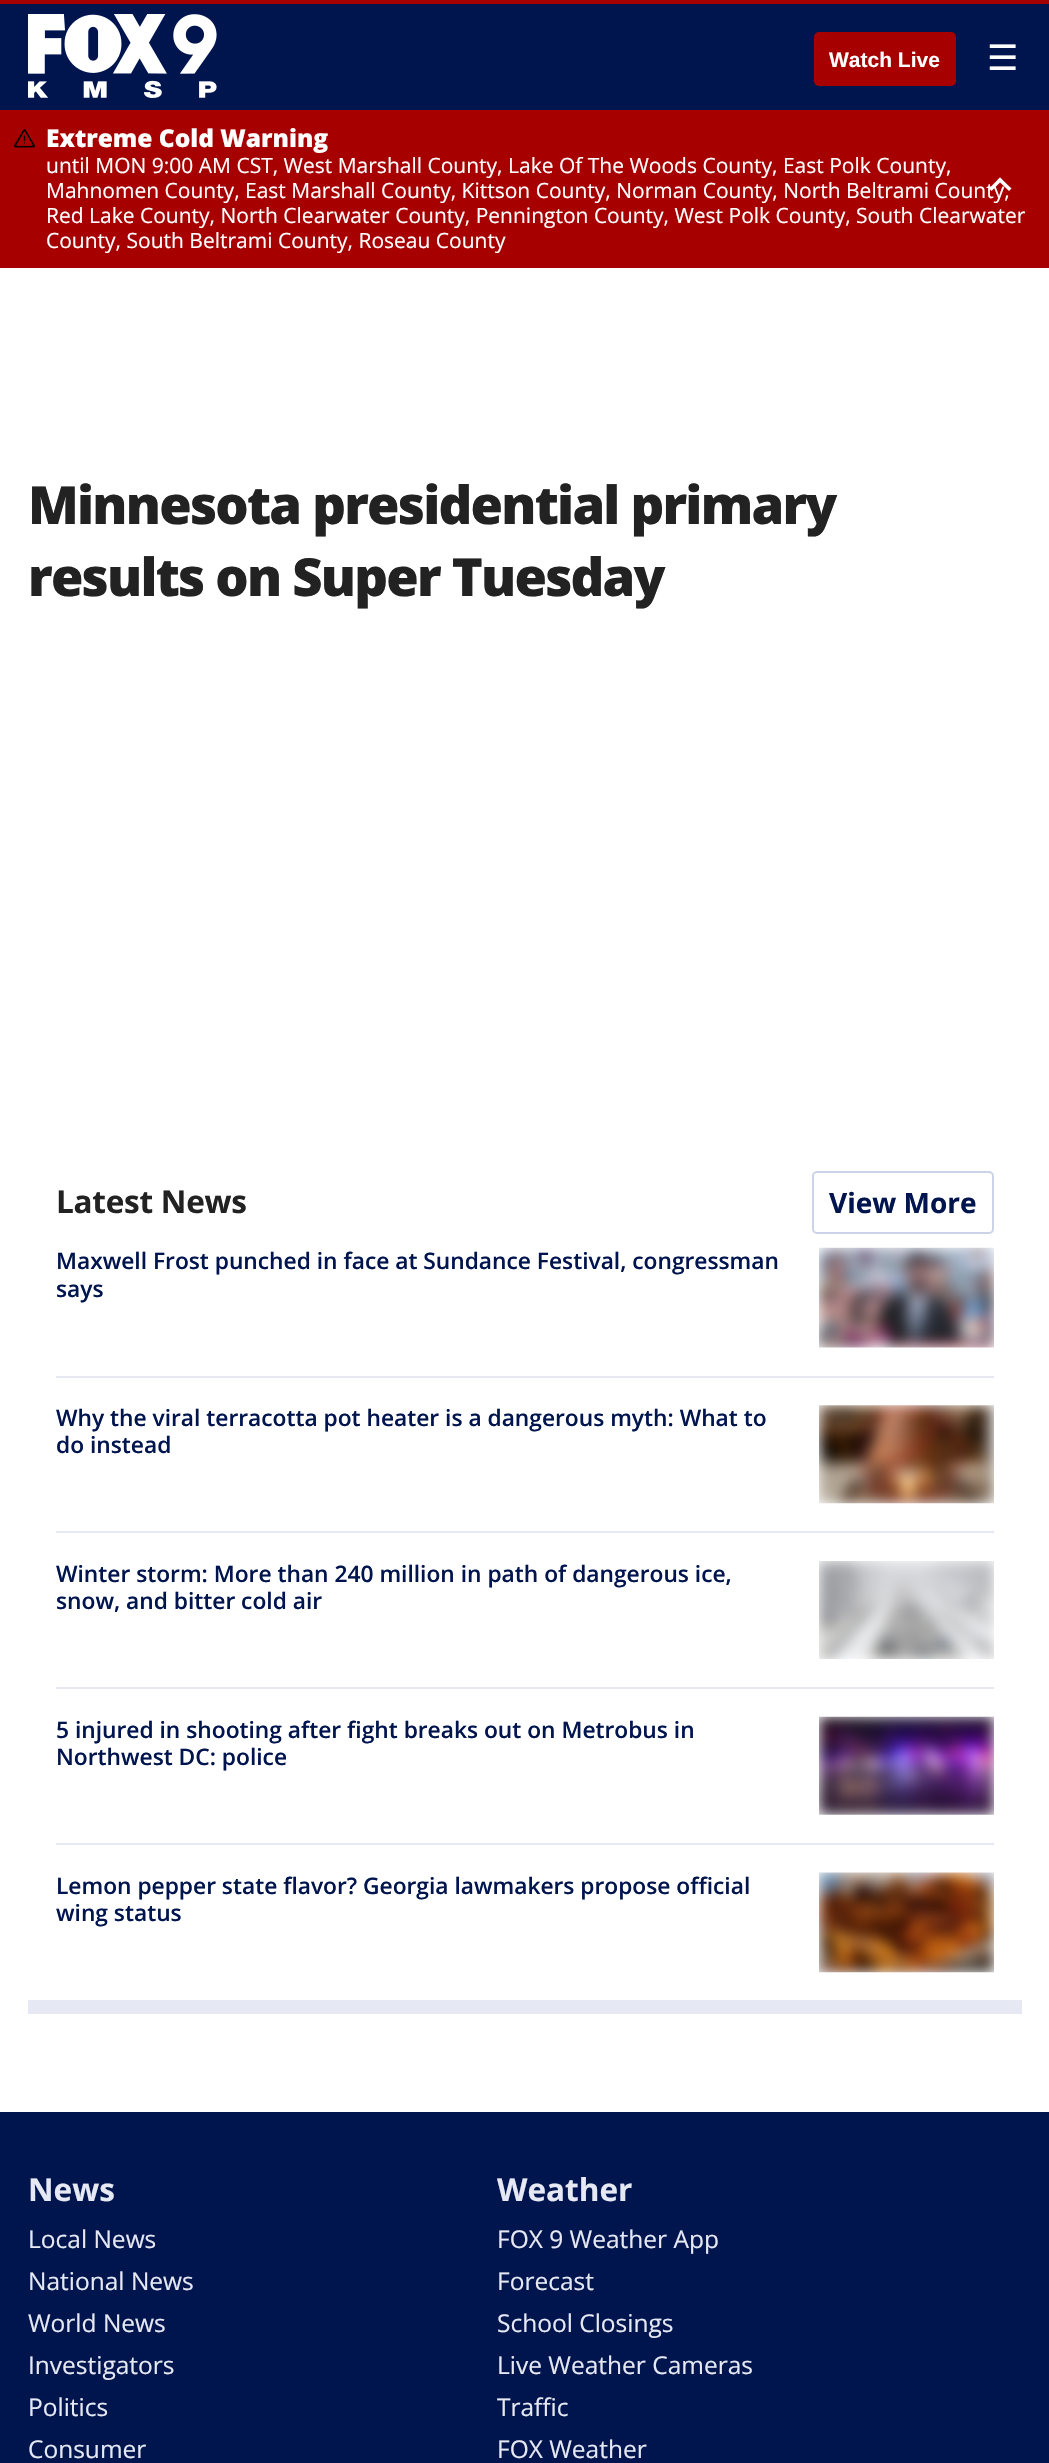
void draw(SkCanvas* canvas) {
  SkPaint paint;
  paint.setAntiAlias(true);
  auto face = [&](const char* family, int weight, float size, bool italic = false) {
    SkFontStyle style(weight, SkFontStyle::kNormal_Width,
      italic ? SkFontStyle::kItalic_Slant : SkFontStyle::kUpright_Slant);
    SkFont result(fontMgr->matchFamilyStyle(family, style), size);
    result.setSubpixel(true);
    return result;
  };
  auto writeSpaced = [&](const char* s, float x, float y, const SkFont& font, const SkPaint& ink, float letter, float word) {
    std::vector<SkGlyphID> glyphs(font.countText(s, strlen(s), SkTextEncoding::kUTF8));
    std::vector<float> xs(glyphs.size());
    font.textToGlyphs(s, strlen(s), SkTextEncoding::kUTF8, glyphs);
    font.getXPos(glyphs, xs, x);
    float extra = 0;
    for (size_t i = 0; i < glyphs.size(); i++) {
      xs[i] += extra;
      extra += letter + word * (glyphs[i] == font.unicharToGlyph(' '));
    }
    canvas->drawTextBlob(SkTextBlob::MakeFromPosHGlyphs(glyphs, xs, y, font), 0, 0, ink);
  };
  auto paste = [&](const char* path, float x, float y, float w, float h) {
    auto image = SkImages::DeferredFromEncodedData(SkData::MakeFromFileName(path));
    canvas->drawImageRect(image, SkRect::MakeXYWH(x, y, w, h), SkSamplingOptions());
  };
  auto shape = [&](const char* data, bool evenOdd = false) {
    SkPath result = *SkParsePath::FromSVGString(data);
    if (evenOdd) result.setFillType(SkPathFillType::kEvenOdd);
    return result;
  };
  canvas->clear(0xffffffff);
  paint.setColor(0xff00144e);
  canvas->drawRect(SkRect::MakeXYWH(0, 4, 1049, 106), paint);
  paint.setColor(0xffa70000);
  canvas->drawRect(SkRect::MakeXYWH(0, 0, 1049, 4), paint);
  paste("img/1.png", 28, 14, 189, 84);
  canvas->drawRoundRect(SkRect::MakeXYWH(814, 32, 142, 54), 5, 5, paint);
  canvas->drawRect(SkRect::MakeXYWH(0, 110, 1049, 158), paint);
  paste("img/2.png", 14, 129, 21, 19);
  paint.setColor(0xffffffff);
  canvas->drawPath(shape("M991.5 191L989 188.5L1000 177.5L1002.5 180Z"), paint);
  canvas->drawPath(shape("M1009 191L997.5 180L1000 177.5L1011.5 188.5Z"), paint);
  paint.setColor(0xffe6e9f3);
  canvas->drawRect(SkRect::MakeXYWH(28, 2000, 994, 14), paint);
  paint.setStroke(true);
  paint.setStrokeWidth(2);
  paint.setColor(0xffccd3e6);
  canvas->drawRoundRect(SkRect::MakeXYWH(813, 1172, 180, 61), 4, 4, paint);
  paint.setStroke(false);
  paint.setColor(0xffe6e9f3);
  canvas->drawRect(SkRect::MakeXYWH(56, 1376, 938, 2), paint);
  paste("img/3.png", 819, 1247, 175, 101);
  canvas->drawRect(SkRect::MakeXYWH(56, 1531, 938, 2), paint);
  paste("img/4.png", 819, 1405, 175, 99);
  canvas->drawRect(SkRect::MakeXYWH(56, 1687, 938, 2), paint);
  paste("img/5.png", 819, 1561, 175, 98);
  canvas->drawRect(SkRect::MakeXYWH(56, 1843, 938, 2), paint);
  paste("img/6.png", 819, 1716, 175, 99);
  paste("img/7.png", 819, 1872, 175, 101);
  paint.setColor(0xff00144e);
  canvas->drawRect(SkRect::MakeXYWH(0, 2112, 1049, 351), paint);
  auto f0 = face("Liberation Sans", 700, 21);
  paint.setColor(0xffffffff);
  canvas->drawString("Watch Live", 829, 67, f0, paint);
  auto f1 = face("DejaVu Sans", 400, 35);
  canvas->drawString("☰", 987, 70, f1, paint);
  auto f2 = face("Open Sans", 800, 24.5f);
  canvas->drawString("Extreme Cold Warning", 46, 147, f2, paint);
  auto f3 = face("Open Sans", 400, 21);
  {
    const struct { const char* s; float x, y; } items[] = {
      {"until MON 9:00 AM CST, West Marshall County, Lake Of The Woods County, East Polk County,", 46, 173},
      {"Mahnomen County, East Marshall County, Kittson County, Norman County, North Beltrami County,", 46, 198},
      {"Red Lake County, North Clearwater County, Pennington County, West Polk County, South Clearwater", 46, 223},
      {"County, South Beltrami County, Roseau County", 46, 248},
    };
    for (auto [s, x, y] : items) {
      canvas->drawString(s, x, y, f3, paint);
    }
  }
  auto f4 = face("Open Sans", 800, 52.5f);
  paint.setColor(0xff222222);
  writeSpaced("Minnesota presidential primary", 28, 524, f4, paint, -1.75f, 0);
  writeSpaced("results on Super Tuesday", 28, 596, f4, paint, -1.75f, 0);
  auto f5 = face("Open Sans", 700, 31.5f);
  writeSpaced("Latest News", 56, 1213, f5, paint, -0.25f, 0);
  auto f6 = face("Open Sans", 700, 28);
  paint.setColor(0xff00144e);
  canvas->drawString("View More", 829, 1213, f6, paint);
  auto f7 = face("Open Sans", 600, 22.75f);
  {
    const struct { const char* s; float x, y; } items[] = {
      {"Maxwell Frost punched in face at Sundance Festival, congressman", 56, 1269},
      {"says", 56, 1297},
      {"Why the viral terracotta pot heater is a dangerous myth: What to", 56, 1426},
      {"do instead", 56, 1453},
      {"Winter storm: More than 240 million in path of dangerous ice,", 56, 1582},
      {"snow, and bitter cold air", 56, 1609},
      {"5 injured in shooting after fight breaks out on Metrobus in", 56, 1738},
      {"Northwest DC: police", 56, 1765},
      {"Lemon pepper state flavor? Georgia lawmakers propose official", 56, 1894},
      {"wing status", 56, 1921},
    };
    for (auto [s, x, y] : items) {
      canvas->drawString(s, x, y, f7, paint);
    }
  }
  paint.setColor(0xffe6e9f3);
  canvas->drawString("News", 28, 2201, f5, paint);
  auto f8 = face("Open Sans", 400, 24.5f);
  {
    const struct { const char* s; float x, y; } items[] = {
      {"Local News", 28, 2248},
      {"National News", 28, 2290},
      {"World News", 28, 2332},
      {"Investigators", 28, 2374},
      {"Politics", 28, 2416},
      {"Consumer", 28, 2458},
    };
    for (auto [s, x, y] : items) {
      canvas->drawString(s, x, y, f8, paint);
    }
  }
  canvas->drawString("Weather", 497, 2201, f5, paint);
  {
    const struct { const char* s; float x, y; } items[] = {
      {"FOX 9 Weather App", 497, 2248},
      {"Forecast", 497, 2290},
      {"School Closings", 497, 2332},
      {"Live Weather Cameras", 497, 2374},
      {"Traffic", 497, 2416},
      {"FOX Weather", 497, 2458},
    };
    for (auto [s, x, y] : items) {
      canvas->drawString(s, x, y, f8, paint);
    }
  }
}
